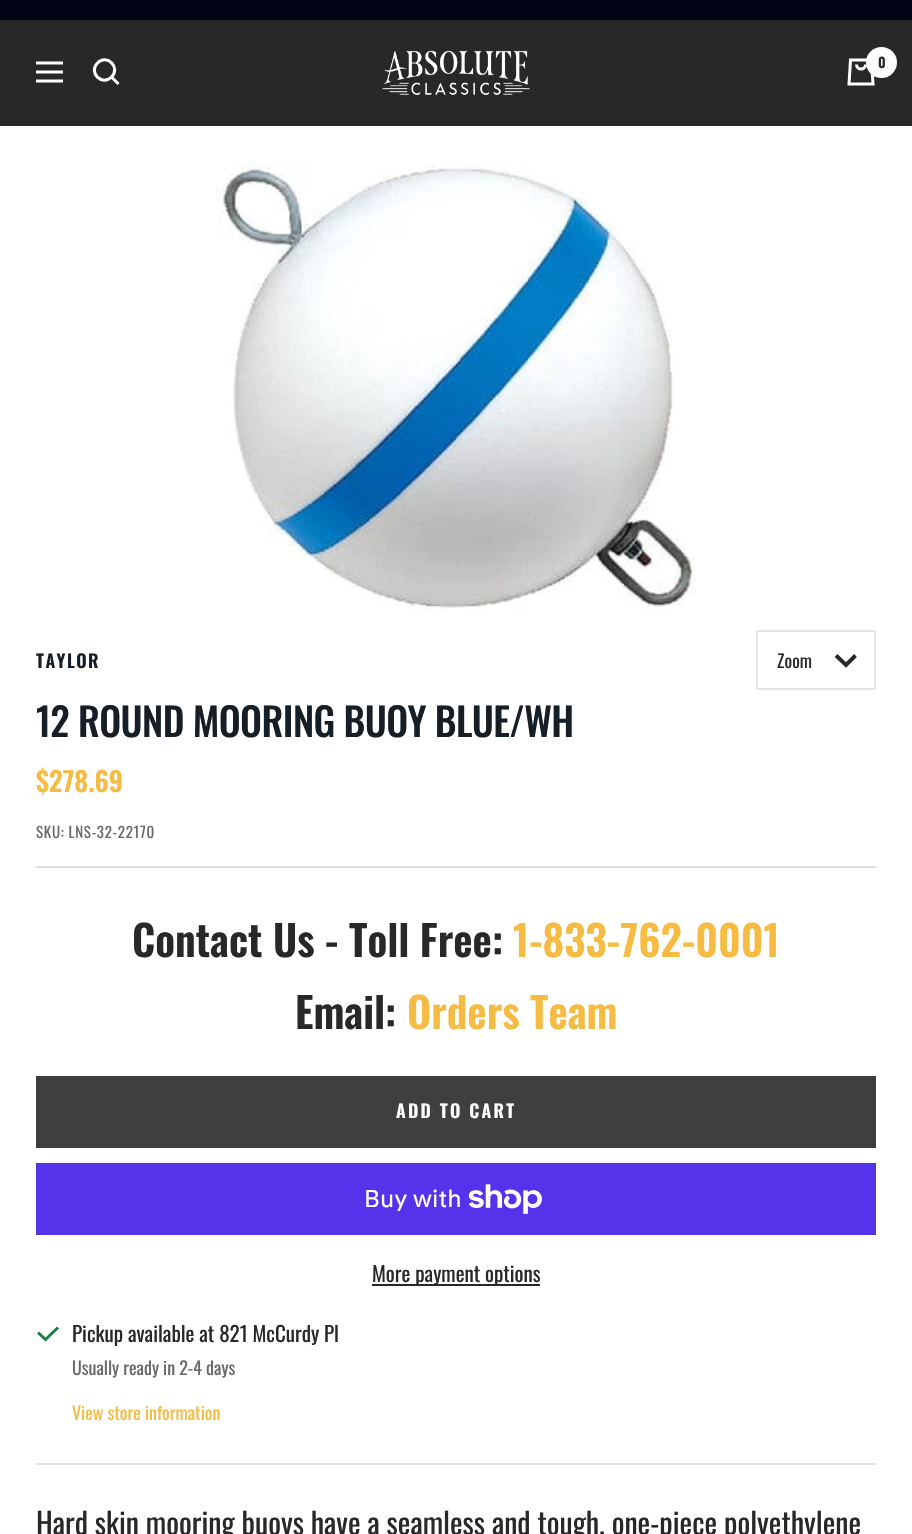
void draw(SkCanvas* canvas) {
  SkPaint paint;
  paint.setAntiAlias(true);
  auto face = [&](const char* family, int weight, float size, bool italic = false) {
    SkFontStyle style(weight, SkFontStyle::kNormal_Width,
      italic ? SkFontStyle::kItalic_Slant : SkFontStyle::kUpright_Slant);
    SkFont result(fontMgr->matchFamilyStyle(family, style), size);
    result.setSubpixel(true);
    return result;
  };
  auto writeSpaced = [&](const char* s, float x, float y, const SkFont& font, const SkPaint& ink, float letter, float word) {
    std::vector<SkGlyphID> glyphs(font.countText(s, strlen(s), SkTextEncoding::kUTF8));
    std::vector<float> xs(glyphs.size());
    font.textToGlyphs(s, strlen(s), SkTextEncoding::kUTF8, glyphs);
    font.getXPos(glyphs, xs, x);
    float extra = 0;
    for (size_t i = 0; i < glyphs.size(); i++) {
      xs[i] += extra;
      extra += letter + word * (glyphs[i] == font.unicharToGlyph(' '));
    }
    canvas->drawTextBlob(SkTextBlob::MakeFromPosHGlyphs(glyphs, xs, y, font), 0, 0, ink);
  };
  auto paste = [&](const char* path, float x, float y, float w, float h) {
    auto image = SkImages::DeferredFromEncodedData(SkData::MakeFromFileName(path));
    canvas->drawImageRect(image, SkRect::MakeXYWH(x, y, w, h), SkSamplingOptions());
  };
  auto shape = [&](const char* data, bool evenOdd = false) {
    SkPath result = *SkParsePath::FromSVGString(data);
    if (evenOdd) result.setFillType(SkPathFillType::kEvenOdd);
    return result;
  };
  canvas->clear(0xffffffff);
  paint.setColor(0xff000414);
  canvas->drawRect(SkRect::MakeXYWH(0, 0, 912, 20), paint);
  paint.setColor(0xff282828);
  canvas->drawRect(SkRect::MakeXYWH(0, 20, 912, 106), paint);
  paint.setStroke(true);
  paint.setStrokeWidth(3);
  paint.setColor(0xffffffff);
  canvas->drawPath(shape("M36 63H63M36 81H63ZM36 72H63Z"), paint);
  canvas->drawPath(shape("M111.5 77C121 67.5 107 53.5 97.5 63C88 72.5 102 86.5 111.5 77ZM111.5 77L118.5 84"), paint);
  paste("img/1.png", 382, 50, 148, 45);
  canvas->drawPath(shape("M850.5 60H871.5L873 84H849ZM856.5 64.5C856.5 70.5 865.5 70.5 865.5 64.5"), paint);
  paint.setStroke(false);
  canvas->drawCircle(881.5f, 62.5f, 15.5f, paint);
  paste("img/2.png", 216, 162, 480, 450);
  paint.setColor(0xffdfdfdf);
  canvas->drawRect(SkRect::MakeXYWH(36, 866, 840, 2), paint);
  paint.setStroke(true);
  paint.setStrokeWidth(2);
  paint.setColor(0xffe4e4e4);
  canvas->drawRoundRect(SkRect::MakeXYWH(757, 631, 118, 58), 2, 2, paint);
  paint.setStrokeWidth(3.9f);
  paint.setColor(0xff282828);
  canvas->drawPath(shape("M836 655.5L846 665L855.5 655.5"), paint);
  paint.setStroke(false);
  paint.setColor(0xff3f3f3f);
  canvas->drawRect(SkRect::MakeXYWH(36, 1076, 840, 72), paint);
  paint.setColor(0xff5433eb);
  canvas->drawRect(SkRect::MakeXYWH(36, 1163, 840, 72), paint);
  paste("img/3.png", 468, 1184, 74, 30);
  paint.setColor(0xff282828);
  canvas->drawRect(SkRect::MakeXYWH(372, 1284, 168, 2), paint);
  paint.setStroke(true);
  paint.setStrokeWidth(3);
  paint.setColor(0xff168342);
  canvas->drawPath(shape("M38 1332.5L45.5 1339.5L58 1327.5"), paint);
  paint.setStroke(false);
  paint.setColor(0xffdfdfdf);
  canvas->drawRect(SkRect::MakeXYWH(36, 1463, 840, 2), paint);
  auto f0 = face("Oswald", 600, 14);
  paint.setColor(0xff282828);
  canvas->drawString("0", 878, 68, f0, paint);
  auto f1 = face("Oswald", 600, 18);
  paint.setColor(0xff161e26);
  writeSpaced("TAYLOR", 36, 668, f1, paint, 1.5f, 0);
  auto f2 = face("Oswald", 500, 39);
  writeSpaced("12 ROUND MOORING BUOY BLUE/WH", 36, 737, f2, paint, -0.6f, 0);
  auto f3 = face("Oswald", 600, 27);
  paint.setColor(0xfff6bb42);
  canvas->drawString("$278.69", 36, 792, f3, paint);
  auto f4 = face("Oswald", 400, 15);
  paint.setColor(0xff696969);
  writeSpaced("SKU: LNS-32-22170", 36, 838, f4, paint, 0.7f, 0);
  auto f5 = face("Oswald", 400, 18);
  paint.setColor(0xff282828);
  canvas->drawString("Zoom", 777, 668, f5, paint);
  auto f6 = face("Oswald", 600, 42);
  canvas->drawString("Contact Us - Toll Free:", 132, 957, f6, paint);
  paint.setColor(0xfff6bb42);
  canvas->drawString("1-833-762-0001", 513, 957, f6, paint);
  paint.setColor(0xff282828);
  canvas->drawString("Email:", 295, 1029, f6, paint);
  paint.setColor(0xfff6bb42);
  canvas->drawString("Orders Team", 407, 1029, f6, paint);
  paint.setColor(0xffffffff);
  writeSpaced("ADD TO CART", 396, 1118, f1, paint, 2.25f, 0);
  auto f7 = face("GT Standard", 400, 24);
  canvas->drawString("Buy with", 364, 1207, f7, paint);
  auto f8 = face("Oswald", 400, 21);
  paint.setColor(0xff282828);
  canvas->drawString("More payment options", 372, 1282, f8, paint);
  canvas->drawString("Pickup available at 821 McCurdy Pl", 72, 1342, f8, paint);
  paint.setColor(0xff696969);
  canvas->drawString("Usually ready in 2-4 days", 72, 1375, f5, paint);
  paint.setColor(0xfff6bb42);
  canvas->drawString("View store information", 72, 1420, f5, paint);
  auto f9 = face("Oswald", 400, 30);
  paint.setColor(0xff282828);
  canvas->drawString("Hard skin mooring buoys have a seamless and tough, one-piece polyethylene", 36, 1535, f9, paint);
}
